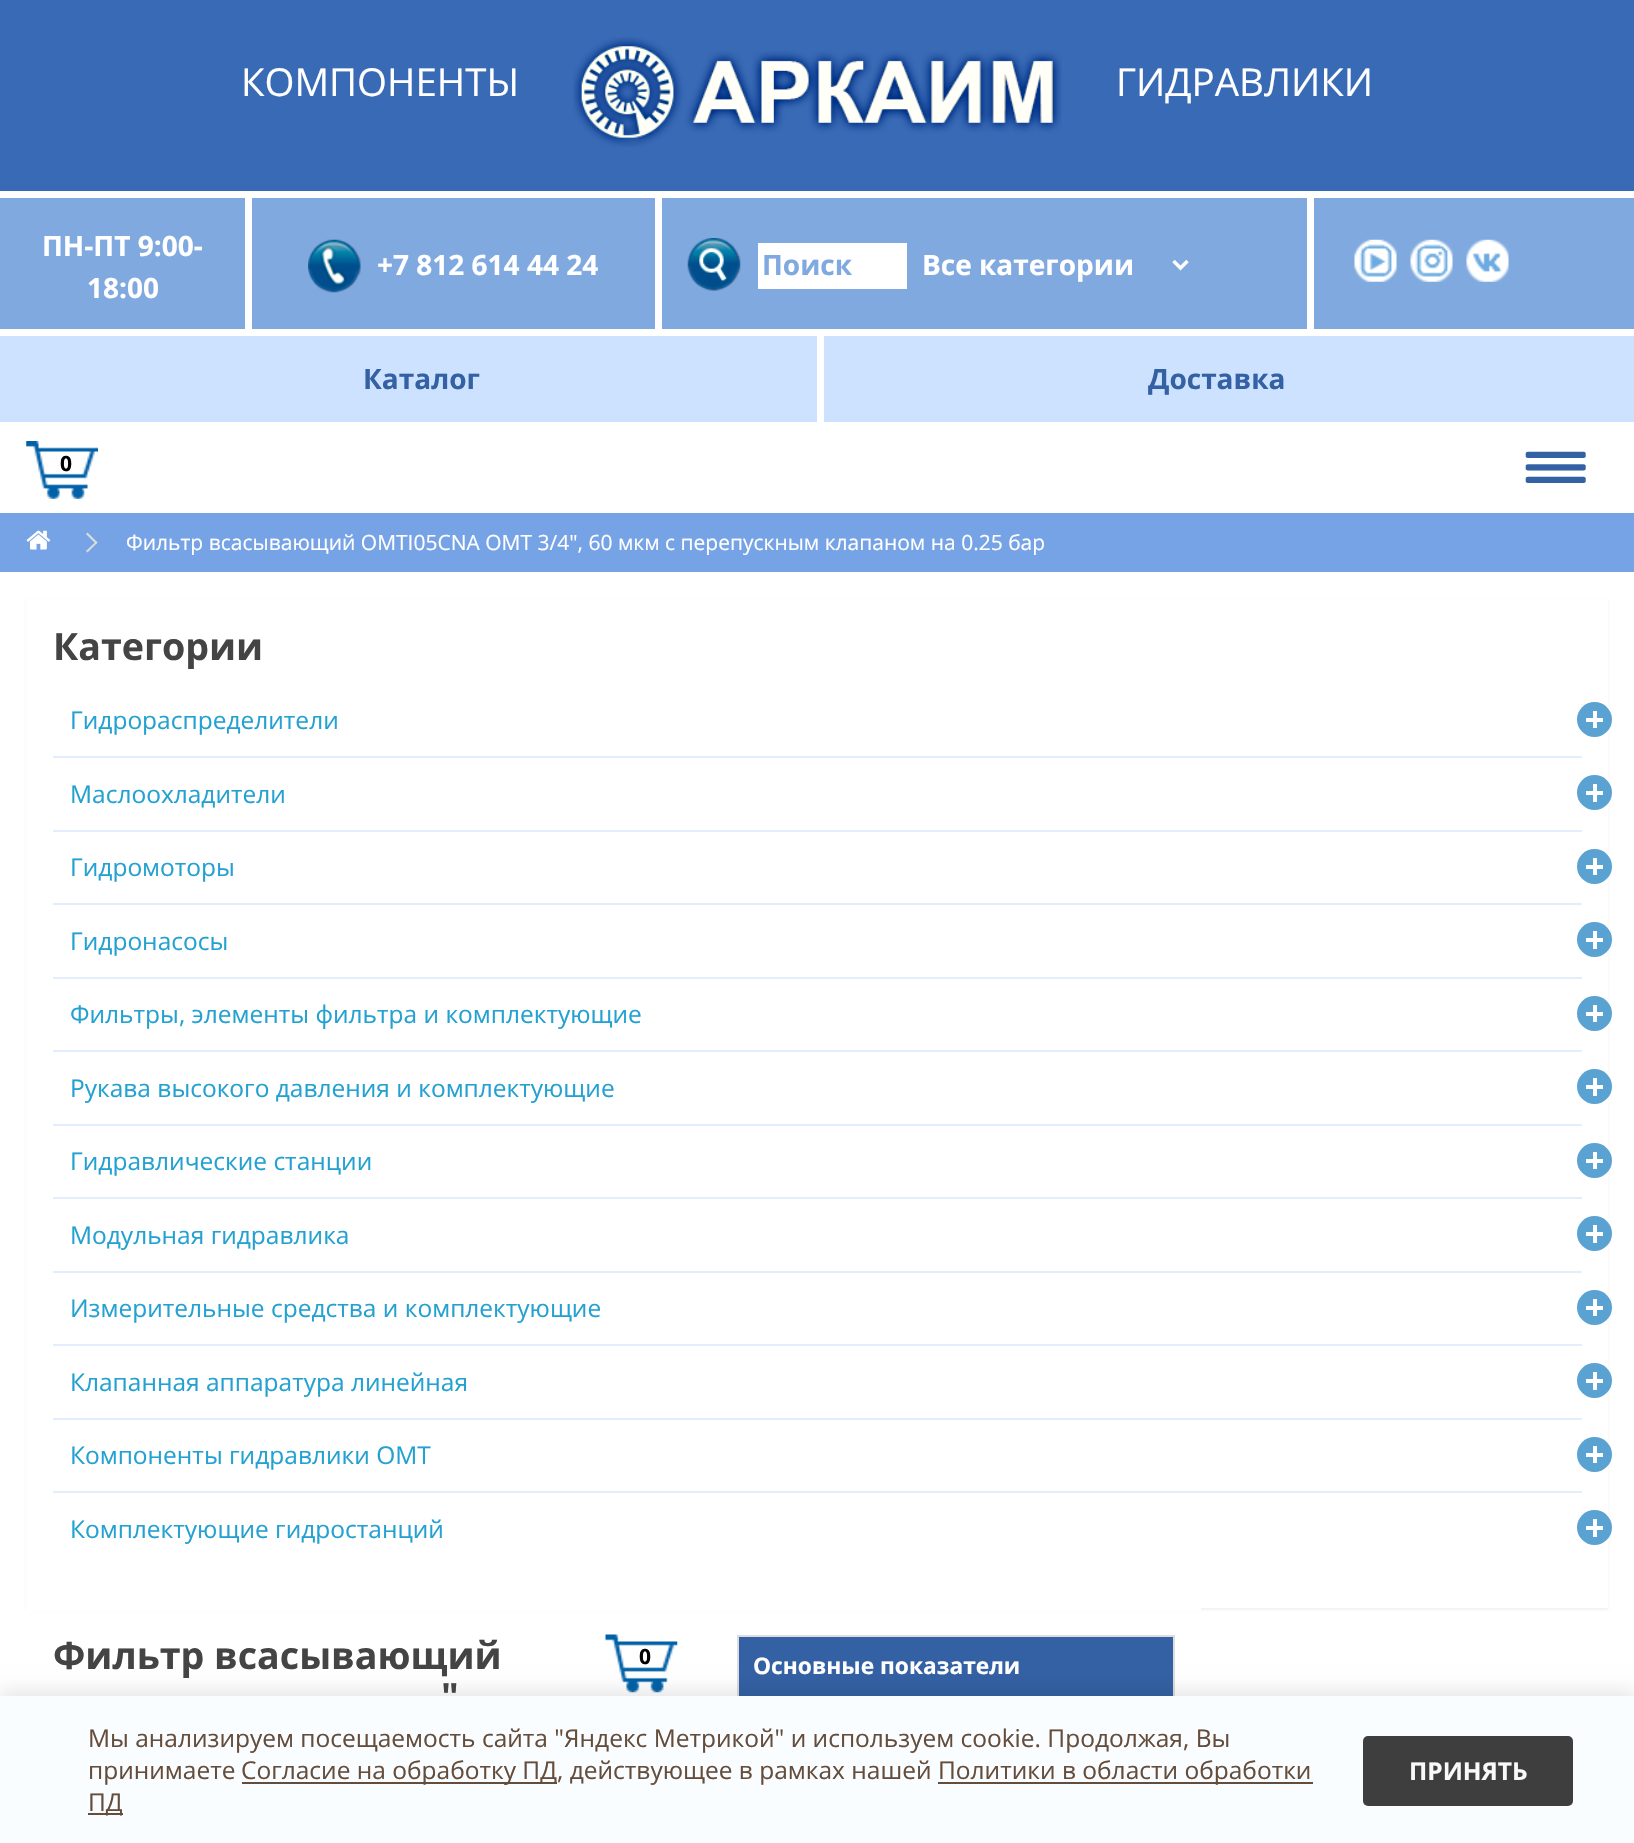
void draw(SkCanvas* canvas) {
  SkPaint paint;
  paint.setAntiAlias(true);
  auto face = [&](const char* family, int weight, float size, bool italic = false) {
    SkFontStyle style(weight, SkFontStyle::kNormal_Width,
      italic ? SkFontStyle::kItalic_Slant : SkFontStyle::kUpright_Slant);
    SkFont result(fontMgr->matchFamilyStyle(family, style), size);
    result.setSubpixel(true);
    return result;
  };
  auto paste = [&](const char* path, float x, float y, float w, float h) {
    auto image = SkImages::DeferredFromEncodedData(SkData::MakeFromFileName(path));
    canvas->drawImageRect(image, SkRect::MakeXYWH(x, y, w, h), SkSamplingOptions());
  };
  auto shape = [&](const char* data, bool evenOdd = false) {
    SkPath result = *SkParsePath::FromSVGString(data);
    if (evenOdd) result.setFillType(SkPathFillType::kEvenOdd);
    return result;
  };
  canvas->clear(0xffffffff);
  paint.setColor(0xff396ab5);
  canvas->drawRect(SkRect::MakeXYWH(0, 0, 1634, 191), paint);
  paste("img/1.png", 573, 37, 489, 110);
  paint.setColor(0xff80a9df);
  canvas->drawRect(SkRect::MakeXYWH(0, 198, 1634, 131), paint);
  paint.setColor(0xffffffff);
  canvas->drawRect(SkRect::MakeXYWH(245, 198, 7, 131), paint);
  paste("img/2.png", 308, 239, 53, 54);
  canvas->drawRect(SkRect::MakeXYWH(655, 198, 7, 131), paint);
  paste("img/3.png", 687, 238, 54, 53);
  canvas->drawRect(SkRect::MakeXYWH(758, 243, 149, 46), paint);
  paint.setStroke(true);
  paint.setStrokeWidth(3.5f);
  canvas->drawPath(shape("M1173.5 261L1180.5 268L1187.5 261"), paint);
  paint.setStroke(false);
  canvas->drawRect(SkRect::MakeXYWH(1307, 198, 7, 131), paint);
  paste("img/4.png", 1354, 239, 43, 43);
  paste("img/5.png", 1410, 239, 43, 43);
  paste("img/6.png", 1466, 239, 43, 43);
  paint.setColor(0xffcde2ff);
  canvas->drawRect(SkRect::MakeXYWH(0, 336, 1634, 86), paint);
  paint.setColor(0xffffffff);
  canvas->drawRect(SkRect::MakeXYWH(817, 331, 7, 96), paint);
  paste("img/7.png", 26, 441, 72, 58);
  paste("img/8.png", 1525, 451, 61, 32);
  paint.setColor(0xff76a3e6);
  canvas->drawRect(SkRect::MakeXYWH(0, 513, 1634, 59), paint);
  paste("img/9.png", 26, 530, 25, 20);
  paint.setColor(0xffdddddd);
  canvas->drawPath(shape("M86 534L87.5 532.5L97.5 542.5L96 544Z"), paint);
  canvas->drawPath(shape("M86 551L96 541.5L97.5 542.5L87.5 552.5Z"), paint);
  paint.setColor(0x0d000000);
  paint.setMaskFilter(SkMaskFilter::MakeBlur(kNormal_SkBlurStyle, 1));
  canvas->drawRect(SkRect::MakeXYWH(26, 600, 1582, 1010), paint);
  paint.setMaskFilter(nullptr);
  paint.setColor(0xffffffff);
  canvas->drawRect(SkRect::MakeXYWH(26, 599, 1582, 1009), paint);
  paint.setColor(0xffe2edfd);
  canvas->drawRect(SkRect::MakeXYWH(53, 756, 1529, 2), paint);
  paint.setColor(0xff5aa2d2);
  canvas->drawCircle(1594.5f, 719.5f, 17.5f, paint);
  {
    const struct { float x, y, w, h; SkColor color; } items[] = {
      {1593, 711, 4, 17, 0xffffffff},
      {1586, 718, 17, 4, 0xffffffff},
      {53, 830, 1529, 2, 0xffe2edfd},
    };
    for (auto [x, y, w, h, color] : items) {
      paint.setColor(color);
      canvas->drawRect(SkRect::MakeXYWH(x, y, w, h), paint);
    }
  }
  paint.setColor(0xff5aa2d2);
  canvas->drawCircle(1594.5f, 792.5f, 17.5f, paint);
  {
    const struct { float x, y, w, h; SkColor color; } items[] = {
      {1593, 784, 4, 18, 0xffffffff},
      {1586, 791, 17, 4, 0xffffffff},
      {53, 903, 1529, 2, 0xffe2edfd},
    };
    for (auto [x, y, w, h, color] : items) {
      paint.setColor(color);
      canvas->drawRect(SkRect::MakeXYWH(x, y, w, h), paint);
    }
  }
  paint.setColor(0xff5aa2d2);
  canvas->drawCircle(1594.5f, 866.5f, 17.5f, paint);
  {
    const struct { float x, y, w, h; SkColor color; } items[] = {
      {1593, 858, 4, 17, 0xffffffff},
      {1586, 865, 17, 4, 0xffffffff},
      {53, 977, 1529, 2, 0xffe2edfd},
    };
    for (auto [x, y, w, h, color] : items) {
      paint.setColor(color);
      canvas->drawRect(SkRect::MakeXYWH(x, y, w, h), paint);
    }
  }
  paint.setColor(0xff5aa2d2);
  canvas->drawCircle(1594.5f, 939.5f, 17.5f, paint);
  {
    const struct { float x, y, w, h; SkColor color; } items[] = {
      {1593, 931, 4, 18, 0xffffffff},
      {1586, 938, 17, 4, 0xffffffff},
      {53, 1050, 1529, 2, 0xffe2edfd},
    };
    for (auto [x, y, w, h, color] : items) {
      paint.setColor(color);
      canvas->drawRect(SkRect::MakeXYWH(x, y, w, h), paint);
    }
  }
  paint.setColor(0xff5aa2d2);
  canvas->drawCircle(1594.5f, 1013.5f, 17.5f, paint);
  {
    const struct { float x, y, w, h; SkColor color; } items[] = {
      {1593, 1005, 4, 17, 0xffffffff},
      {1586, 1012, 17, 4, 0xffffffff},
      {53, 1124, 1529, 2, 0xffe2edfd},
    };
    for (auto [x, y, w, h, color] : items) {
      paint.setColor(color);
      canvas->drawRect(SkRect::MakeXYWH(x, y, w, h), paint);
    }
  }
  paint.setColor(0xff5aa2d2);
  canvas->drawCircle(1594.5f, 1086.5f, 17.5f, paint);
  {
    const struct { float x, y, w, h; SkColor color; } items[] = {
      {1593, 1078, 4, 18, 0xffffffff},
      {1586, 1085, 17, 4, 0xffffffff},
      {53, 1197, 1529, 2, 0xffe2edfd},
    };
    for (auto [x, y, w, h, color] : items) {
      paint.setColor(color);
      canvas->drawRect(SkRect::MakeXYWH(x, y, w, h), paint);
    }
  }
  paint.setColor(0xff5aa2d2);
  canvas->drawCircle(1594.5f, 1160.5f, 17.5f, paint);
  {
    const struct { float x, y, w, h; SkColor color; } items[] = {
      {1593, 1152, 4, 17, 0xffffffff},
      {1586, 1159, 17, 4, 0xffffffff},
      {53, 1271, 1529, 2, 0xffe2edfd},
    };
    for (auto [x, y, w, h, color] : items) {
      paint.setColor(color);
      canvas->drawRect(SkRect::MakeXYWH(x, y, w, h), paint);
    }
  }
  paint.setColor(0xff5aa2d2);
  canvas->drawCircle(1594.5f, 1233.5f, 17.5f, paint);
  {
    const struct { float x, y, w, h; SkColor color; } items[] = {
      {1593, 1225, 4, 18, 0xffffffff},
      {1586, 1232, 17, 4, 0xffffffff},
      {53, 1344, 1529, 2, 0xffe2edfd},
    };
    for (auto [x, y, w, h, color] : items) {
      paint.setColor(color);
      canvas->drawRect(SkRect::MakeXYWH(x, y, w, h), paint);
    }
  }
  paint.setColor(0xff5aa2d2);
  canvas->drawCircle(1594.5f, 1307.5f, 17.5f, paint);
  {
    const struct { float x, y, w, h; SkColor color; } items[] = {
      {1593, 1299, 4, 17, 0xffffffff},
      {1586, 1306, 17, 4, 0xffffffff},
      {53, 1418, 1529, 2, 0xffe2edfd},
    };
    for (auto [x, y, w, h, color] : items) {
      paint.setColor(color);
      canvas->drawRect(SkRect::MakeXYWH(x, y, w, h), paint);
    }
  }
  paint.setColor(0xff5aa2d2);
  canvas->drawCircle(1594.5f, 1380.5f, 17.5f, paint);
  {
    const struct { float x, y, w, h; SkColor color; } items[] = {
      {1593, 1372, 4, 18, 0xffffffff},
      {1586, 1379, 17, 4, 0xffffffff},
      {53, 1491, 1529, 2, 0xffe2edfd},
    };
    for (auto [x, y, w, h, color] : items) {
      paint.setColor(color);
      canvas->drawRect(SkRect::MakeXYWH(x, y, w, h), paint);
    }
  }
  paint.setColor(0xff5aa2d2);
  canvas->drawCircle(1594.5f, 1454.5f, 17.5f, paint);
  paint.setColor(0xffffffff);
  canvas->drawRect(SkRect::MakeXYWH(1593, 1446, 4, 17), paint);
  canvas->drawRect(SkRect::MakeXYWH(1586, 1453, 17, 4), paint);
  paint.setColor(0xff5aa2d2);
  canvas->drawCircle(1594.5f, 1527.5f, 17.5f, paint);
  {
    const struct { float x, y, w, h; SkColor color; } items[] = {
      {1593, 1519, 4, 18, 0xffffffff},
      {1586, 1526, 17, 4, 0xffffffff},
      {26, 1608, 1175, 3, 0xffffffff},
    };
    for (auto [x, y, w, h, color] : items) {
      paint.setColor(color);
      canvas->drawRect(SkRect::MakeXYWH(x, y, w, h), paint);
    }
  }
  paste("img/10.png", 605, 1634, 73, 59);
  {
    const struct { float x, y, w, h; SkColor color; } items[] = {
      {737, 1635, 437, 2, 0xffdddddd},
      {1173, 1635, 2, 61, 0xffdddddd},
      {737, 1635, 2, 61, 0xffdddddd},
      {739, 1637, 434, 59, 0xff3461a4},
    };
    for (auto [x, y, w, h, color] : items) {
      paint.setColor(color);
      canvas->drawRect(SkRect::MakeXYWH(x, y, w, h), paint);
    }
  }
  paint.setColor(0x1a000000);
  paint.setMaskFilter(SkMaskFilter::MakeBlur(kNormal_SkBlurStyle, 9));
  canvas->drawRect(SkRect::MakeXYWH(0, 1691, 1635, 148), paint);
  paint.setMaskFilter(nullptr);
  {
    const struct { float x, y, w, h; SkColor color; } items[] = {
      {0, 1696, 1634, 147, 0xfffafdff},
      {242, 1782, 315, 2, 0xff654d3b},
      {938, 1782, 375, 2, 0xff654d3b},
      {88, 1813, 35, 2, 0xff654d3b},
    };
    for (auto [x, y, w, h, color] : items) {
      paint.setColor(color);
      canvas->drawRect(SkRect::MakeXYWH(x, y, w, h), paint);
    }
  }
  paint.setColor(0xff3e3e3e);
  canvas->drawRoundRect(SkRect::MakeXYWH(1363, 1736, 210, 70), 5, 5, paint);
  auto f0 = face("Open Sans", 400, 38.5f);
  paint.setColor(0xffffffff);
  canvas->drawString("КОМПОНЕНТЫ", 241, 96, f0, paint);
  canvas->drawString("ГИДРАВЛИКИ", 1116, 96, f0, paint);
  auto f1 = face("Open Sans", 700, 28);
  {
    const struct { const char* s; float x, y; } items[] = {
      {"ПН-ПТ 9:00-", 42, 256},
      {"18:00", 87, 298},
      {"+7 812 614 44 24", 377, 275},
    };
    for (auto [s, x, y] : items) {
      canvas->drawString(s, x, y, f1, paint);
    }
  }
  paint.setColor(0xff80a9df);
  canvas->drawString("Поиск", 762, 275, f1, paint);
  paint.setColor(0xffffffff);
  canvas->drawString("Все категории", 922, 275, f1, paint);
  paint.setColor(0xff3461a4);
  canvas->drawString("Каталог", 363, 389, f1, paint);
  canvas->drawString("Доставка", 1148, 389, f1, paint);
  auto f2 = face("Open Sans", 700, 21);
  paint.setColor(0xff000000);
  canvas->drawString("0", 60, 471, f2, paint);
  auto f3 = face("Open Sans", 400, 21);
  paint.setColor(0xffffffff);
  canvas->drawString("Фильтр всасывающий OMTI05CNA OMT 3/4\", 60 мкм c перепускным клапаном на 0.25 бар", 126, 550, f3, paint);
  auto f4 = face("Open Sans", 700, 37.6f);
  paint.setColor(0xff444444);
  canvas->drawString("Категории", 53, 660, f4, paint);
  auto f5 = face("Open Sans", 400, 24.5f);
  paint.setColor(0xff23a1d1);
  {
    const struct { const char* s; float x, y; } items[] = {
      {"Гидрораспределители", 70, 729},
      {"Маслоохладители", 70, 803},
      {"Гидромоторы", 70, 876},
      {"Гидронасосы", 70, 950},
      {"Фильтры, элементы фильтра и комплектующие", 70, 1023},
      {"Рукава высокого давления и комплектующие", 70, 1097},
      {"Гидравлические станции", 70, 1170},
      {"Модульная гидравлика", 70, 1244},
      {"Измерительные средства и комплектующие", 70, 1317},
      {"Клапанная аппаратура линейная", 70, 1391},
      {"Компоненты гидравлики OMT", 70, 1464},
      {"Комплектующие гидростанций", 70, 1538},
    };
    for (auto [s, x, y] : items) {
      canvas->drawString(s, x, y, f5, paint);
    }
  }
  paint.setColor(0xff444444);
  canvas->drawString("Фильтр всасывающий", 53, 1669, f4, paint);
  canvas->drawString("\"", 441, 1710, f4, paint);
  paint.setColor(0xff000000);
  canvas->drawString("0", 639, 1664, f2, paint);
  auto f6 = face("Open Sans", 700, 22.75f);
  paint.setColor(0xffffffff);
  canvas->drawString("Основные показатели", 753, 1674, f6, paint);
  paint.setColor(0xff654d3b);
  {
    const struct { const char* s; float x, y; } items[] = {
      {"Мы анализируем посещаемость сайта \"Яндекс Метрикой\" и используем cookie. Продолжая, Вы", 88, 1747},
      {"принимаете", 88, 1779},
      {"Согласие на обработку ПД, действующее в рамках нашей", 241, 1779},
      {"Политики в области обработки", 938, 1779},
      {"ПД", 88, 1811},
    };
    for (auto [s, x, y] : items) {
      canvas->drawString(s, x, y, f5, paint);
    }
  }
  auto f7 = face("Open Sans", 700, 24.5f);
  paint.setColor(0xfff9f9f9);
  canvas->drawString("ПРИНЯТЬ", 1409, 1780, f7, paint);
}
